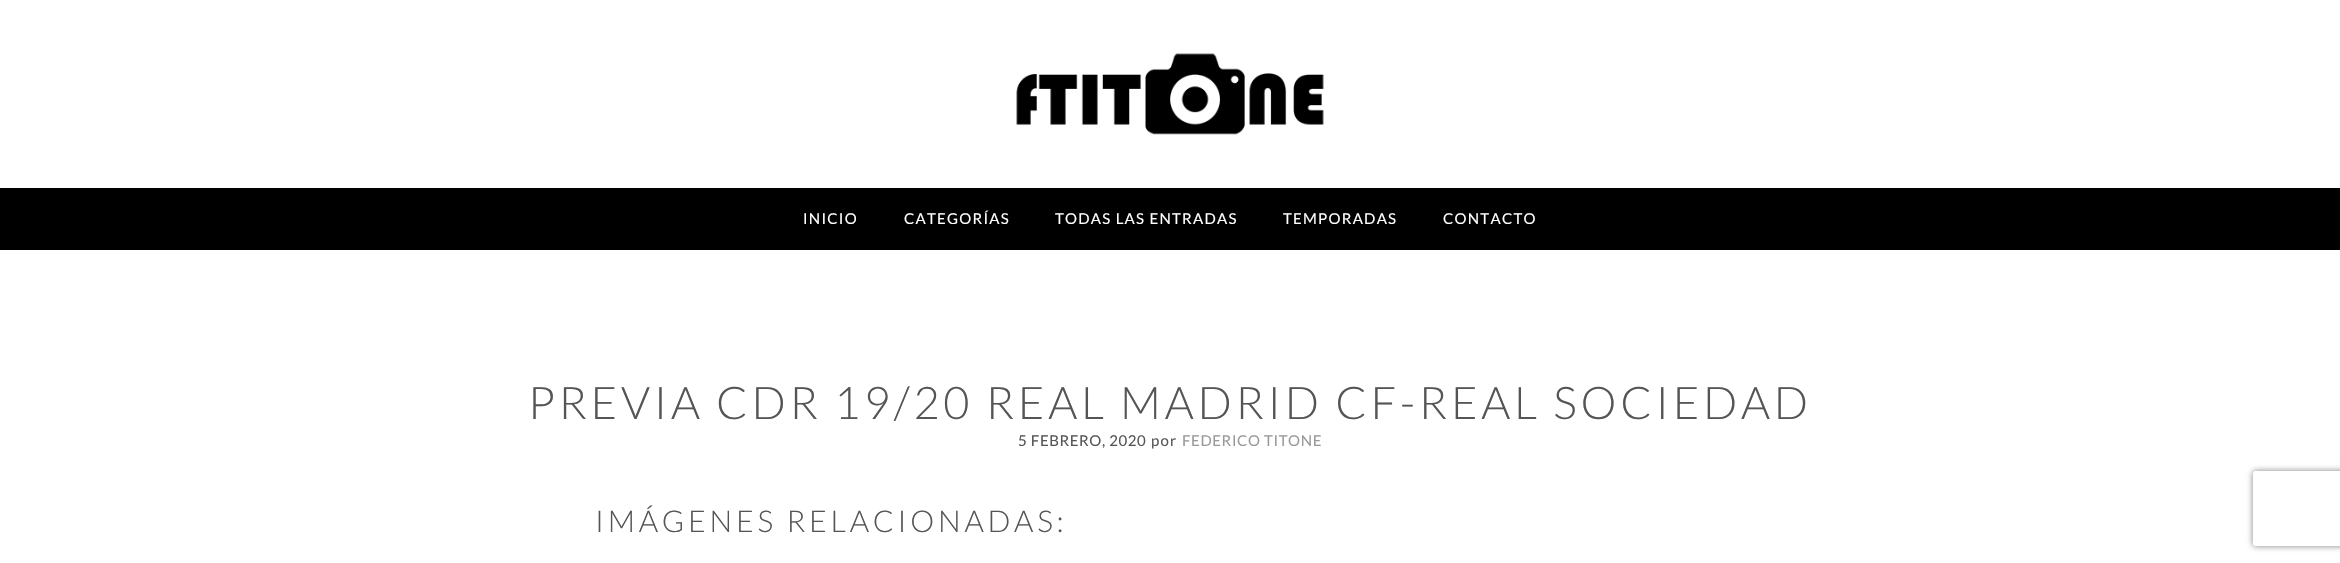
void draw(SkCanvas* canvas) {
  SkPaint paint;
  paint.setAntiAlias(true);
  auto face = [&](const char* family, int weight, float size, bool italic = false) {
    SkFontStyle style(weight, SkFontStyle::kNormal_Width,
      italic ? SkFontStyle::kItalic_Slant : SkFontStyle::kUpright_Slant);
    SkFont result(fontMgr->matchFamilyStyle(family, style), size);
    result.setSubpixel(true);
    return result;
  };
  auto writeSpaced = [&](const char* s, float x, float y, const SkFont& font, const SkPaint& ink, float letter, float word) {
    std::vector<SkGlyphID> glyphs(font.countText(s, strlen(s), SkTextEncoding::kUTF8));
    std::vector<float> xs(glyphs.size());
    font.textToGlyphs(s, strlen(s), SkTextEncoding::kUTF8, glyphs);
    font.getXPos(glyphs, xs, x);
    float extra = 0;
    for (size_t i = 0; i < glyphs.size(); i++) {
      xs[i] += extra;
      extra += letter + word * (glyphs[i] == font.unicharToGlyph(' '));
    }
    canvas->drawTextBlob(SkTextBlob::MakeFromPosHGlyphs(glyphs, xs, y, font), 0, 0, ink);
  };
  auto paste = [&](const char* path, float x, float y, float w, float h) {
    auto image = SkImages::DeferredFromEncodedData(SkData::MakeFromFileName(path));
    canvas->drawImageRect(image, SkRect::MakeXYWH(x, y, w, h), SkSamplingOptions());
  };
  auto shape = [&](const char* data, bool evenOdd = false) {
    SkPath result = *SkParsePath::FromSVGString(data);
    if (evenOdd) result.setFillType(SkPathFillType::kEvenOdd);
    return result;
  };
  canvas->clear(0xffffffff);
  paste("img/1.png", 1016, 53, 308, 82);
  paint.setColor(0xff000000);
  canvas->drawRect(SkRect::MakeXYWH(0, 188, 2340, 62), paint);
  canvas->save();
  canvas->clipPath(shape("M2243 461H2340V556H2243ZM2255.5 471H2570.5C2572 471 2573 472 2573 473.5V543.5C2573 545 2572 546 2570.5 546H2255.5C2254 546 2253 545 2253 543.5V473.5C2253 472 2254 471 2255.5 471Z", true), true);
  paint.setColor(0xff808080);
  paint.setMaskFilter(SkMaskFilter::MakeBlur(kNormal_SkBlurStyle, 3));
  canvas->drawRoundRect(SkRect::MakeXYWH(2253, 471, 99, 75), 2.5f, 2.5f, paint);
  paint.setMaskFilter(nullptr);
  canvas->restore();
  auto f0 = face("Lato", 400, 15);
  paint.setColor(0xffffffff);
  {
    const struct { const char* s; float x, y; } items[] = {
      {"INICIO", 803, 224},
      {"CATEGORÍAS", 904, 224},
      {"TODAS LAS ENTRADAS", 1055, 224},
      {"TEMPORADAS", 1283, 224},
      {"CONTACTO", 1443, 224},
    };
    for (auto [s, x, y] : items) {
      writeSpaced(s, x, y, f0, paint, 1.25f, 0);
    }
  }
  auto f1 = face("Lato", 300, 45);
  paint.setColor(0xff555555);
  writeSpaced("PREVIA CDR 19/20 REAL MADRID CF-REAL SOCIEDAD", 528, 419, f1, paint, 3.75f, 0);
  writeSpaced("5 FEBRERO, 2020", 1018, 446, f0, paint, 0.6f, 0);
  writeSpaced("por", 1151, 446, f0, paint, 1.25f, 0);
  paint.setColor(0xff999999);
  writeSpaced("FEDERICO TITONE", 1182, 446, f0, paint, 0.6f, 0);
  auto f2 = face("Lato", 300, 30);
  paint.setColor(0xff555555);
  writeSpaced("IMÁGENES RELACIONADAS:", 595, 532, f2, paint, 3.75f, 0);
}
